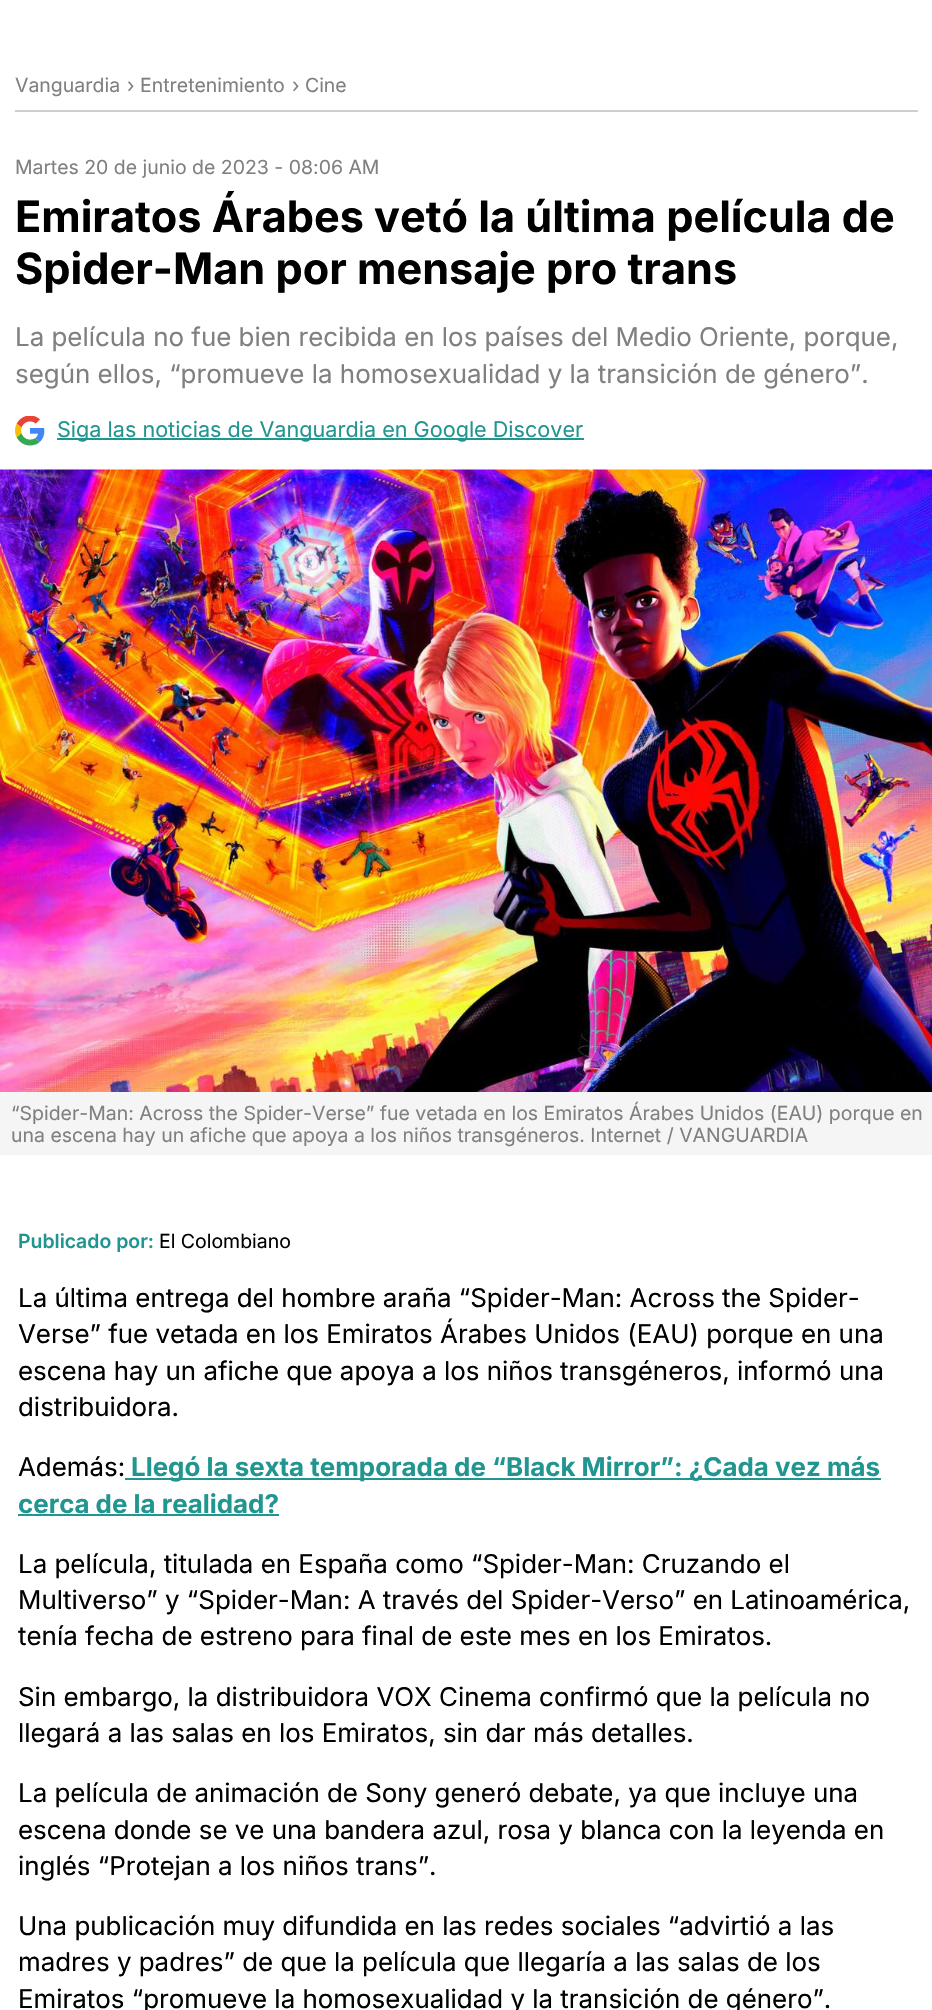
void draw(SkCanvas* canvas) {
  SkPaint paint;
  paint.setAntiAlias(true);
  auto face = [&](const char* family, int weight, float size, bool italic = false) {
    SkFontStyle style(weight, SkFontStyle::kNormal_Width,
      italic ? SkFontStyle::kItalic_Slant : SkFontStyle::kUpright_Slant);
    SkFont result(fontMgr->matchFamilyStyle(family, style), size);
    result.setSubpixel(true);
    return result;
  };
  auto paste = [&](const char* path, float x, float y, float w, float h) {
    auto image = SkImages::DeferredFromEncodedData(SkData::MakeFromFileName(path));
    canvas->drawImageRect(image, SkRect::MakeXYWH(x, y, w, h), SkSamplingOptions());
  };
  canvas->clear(0xffffffff);
  paint.setColor(0xffcfcfcf);
  canvas->drawRect(SkRect::MakeXYWH(15, 110, 903, 2), paint);
  paste("img/1.png", 15, 416, 30, 30);
  paint.setColor(0xff219590);
  canvas->drawRect(SkRect::MakeXYWH(57, 438, 527, 2), paint);
  paste("img/2.png", 0, 469, 932, 623);
  {
    const struct { float x, y, w, h; SkColor color; } items[] = {
      {0, 1092, 932, 63, 0xfff5f5f5},
      {125, 1478, 756, 2, 0xff219590},
      {18, 1514, 261, 2, 0xff219590},
    };
    for (auto [x, y, w, h, color] : items) {
      paint.setColor(color);
      canvas->drawRect(SkRect::MakeXYWH(x, y, w, h), paint);
    }
  }
  auto f0 = face("Inter", 400, 19.45f);
  paint.setColor(0xff808080);
  {
    const struct { const char* s; float x, y; } items[] = {
      {"Vanguardia", 15, 92},
      {"› Entretenimiento", 127, 92},
      {"› Cine", 292, 92},
      {"Martes 20 de junio de 2023 - 08:06 AM", 15, 174},
    };
    for (auto [s, x, y] : items) {
      canvas->drawString(s, x, y, f0, paint);
    }
  }
  auto f1 = face("Inter", 700, 43.2f);
  paint.setColor(0xff000000);
  canvas->drawString("Emiratos Árabes vetó la última película de", 15, 232, f1, paint);
  canvas->drawString("Spider-Man por mensaje pro trans", 15, 284, f1, paint);
  auto f2 = face("Inter", 400, 25.9f);
  paint.setColor(0xff808080);
  canvas->drawString("La película no fue bien recibida en los países del Medio Oriente, porque,", 15, 346, f2, paint);
  canvas->drawString("según ellos, “promueve la homosexualidad y la transición de género”.", 15, 383, f2, paint);
  auto f3 = face("Inter", 400, 21.6f);
  paint.setColor(0xff219590);
  canvas->drawString("Siga las noticias de Vanguardia en Google Discover", 57, 437, f3, paint);
  paint.setColor(0xff808080);
  canvas->drawString("“Spider-Man: Across the Spider-Verse” fue vetada en los Emiratos Árabes Unidos (EAU) porque en", 11, 1120, f0, paint);
  canvas->drawString("una escena hay un afiche que apoya a los niños transgéneros. Internet / VANGUARDIA", 11, 1142, f0, paint);
  auto f4 = face("Inter", 600, 19.45f);
  paint.setColor(0xff219590);
  canvas->drawString("Publicado por:", 18, 1248, f4, paint);
  paint.setColor(0xff000000);
  canvas->drawString("El Colombiano", 159, 1248, f0, paint);
  {
    const struct { const char* s; float x, y; } items[] = {
      {"La última entrega del hombre araña “Spider-Man: Across the Spider-", 18, 1307},
      {"Verse” fue vetada en los Emiratos Árabes Unidos (EAU) porque en una", 18, 1343},
      {"escena hay un afiche que apoya a los niños transgéneros, informó una", 18, 1380},
      {"distribuidora.", 18, 1416},
      {"Además:", 18, 1476},
    };
    for (auto [s, x, y] : items) {
      canvas->drawString(s, x, y, f2, paint);
    }
  }
  auto f5 = face("Inter", 700, 25.9f);
  paint.setColor(0xff219590);
  canvas->drawString("Llegó la sexta temporada de “Black Mirror”: ¿Cada vez más", 131, 1476, f5, paint);
  canvas->drawString("cerca de la realidad?", 18, 1513, f5, paint);
  paint.setColor(0xff000000);
  {
    const struct { const char* s; float x, y; } items[] = {
      {"La película, titulada en España como “Spider-Man: Cruzando el", 18, 1573},
      {"Multiverso” y “Spider-Man: A través del Spider-Verso” en Latinoamérica,", 18, 1609},
      {"tenía fecha de estreno para final de este mes en los Emiratos.", 18, 1645},
      {"Sin embargo, la distribuidora VOX Cinema confirmó que la película no", 18, 1706},
      {"llegará a las salas en los Emiratos, sin dar más detalles.", 18, 1742},
      {"La película de animación de Sony generó debate, ya que incluye una", 18, 1802},
      {"escena donde se ve una bandera azul, rosa y blanca con la leyenda en", 18, 1839},
      {"inglés “Protejan a los niños trans”.", 18, 1875},
      {"Una publicación muy difundida en las redes sociales “advirtió a las", 18, 1935},
      {"madres y padres” de que la película que llegaría a las salas de los", 18, 1971},
      {"Emiratos “promueve la homosexualidad y la transición de género”.", 18, 2008},
    };
    for (auto [s, x, y] : items) {
      canvas->drawString(s, x, y, f2, paint);
    }
  }
}
